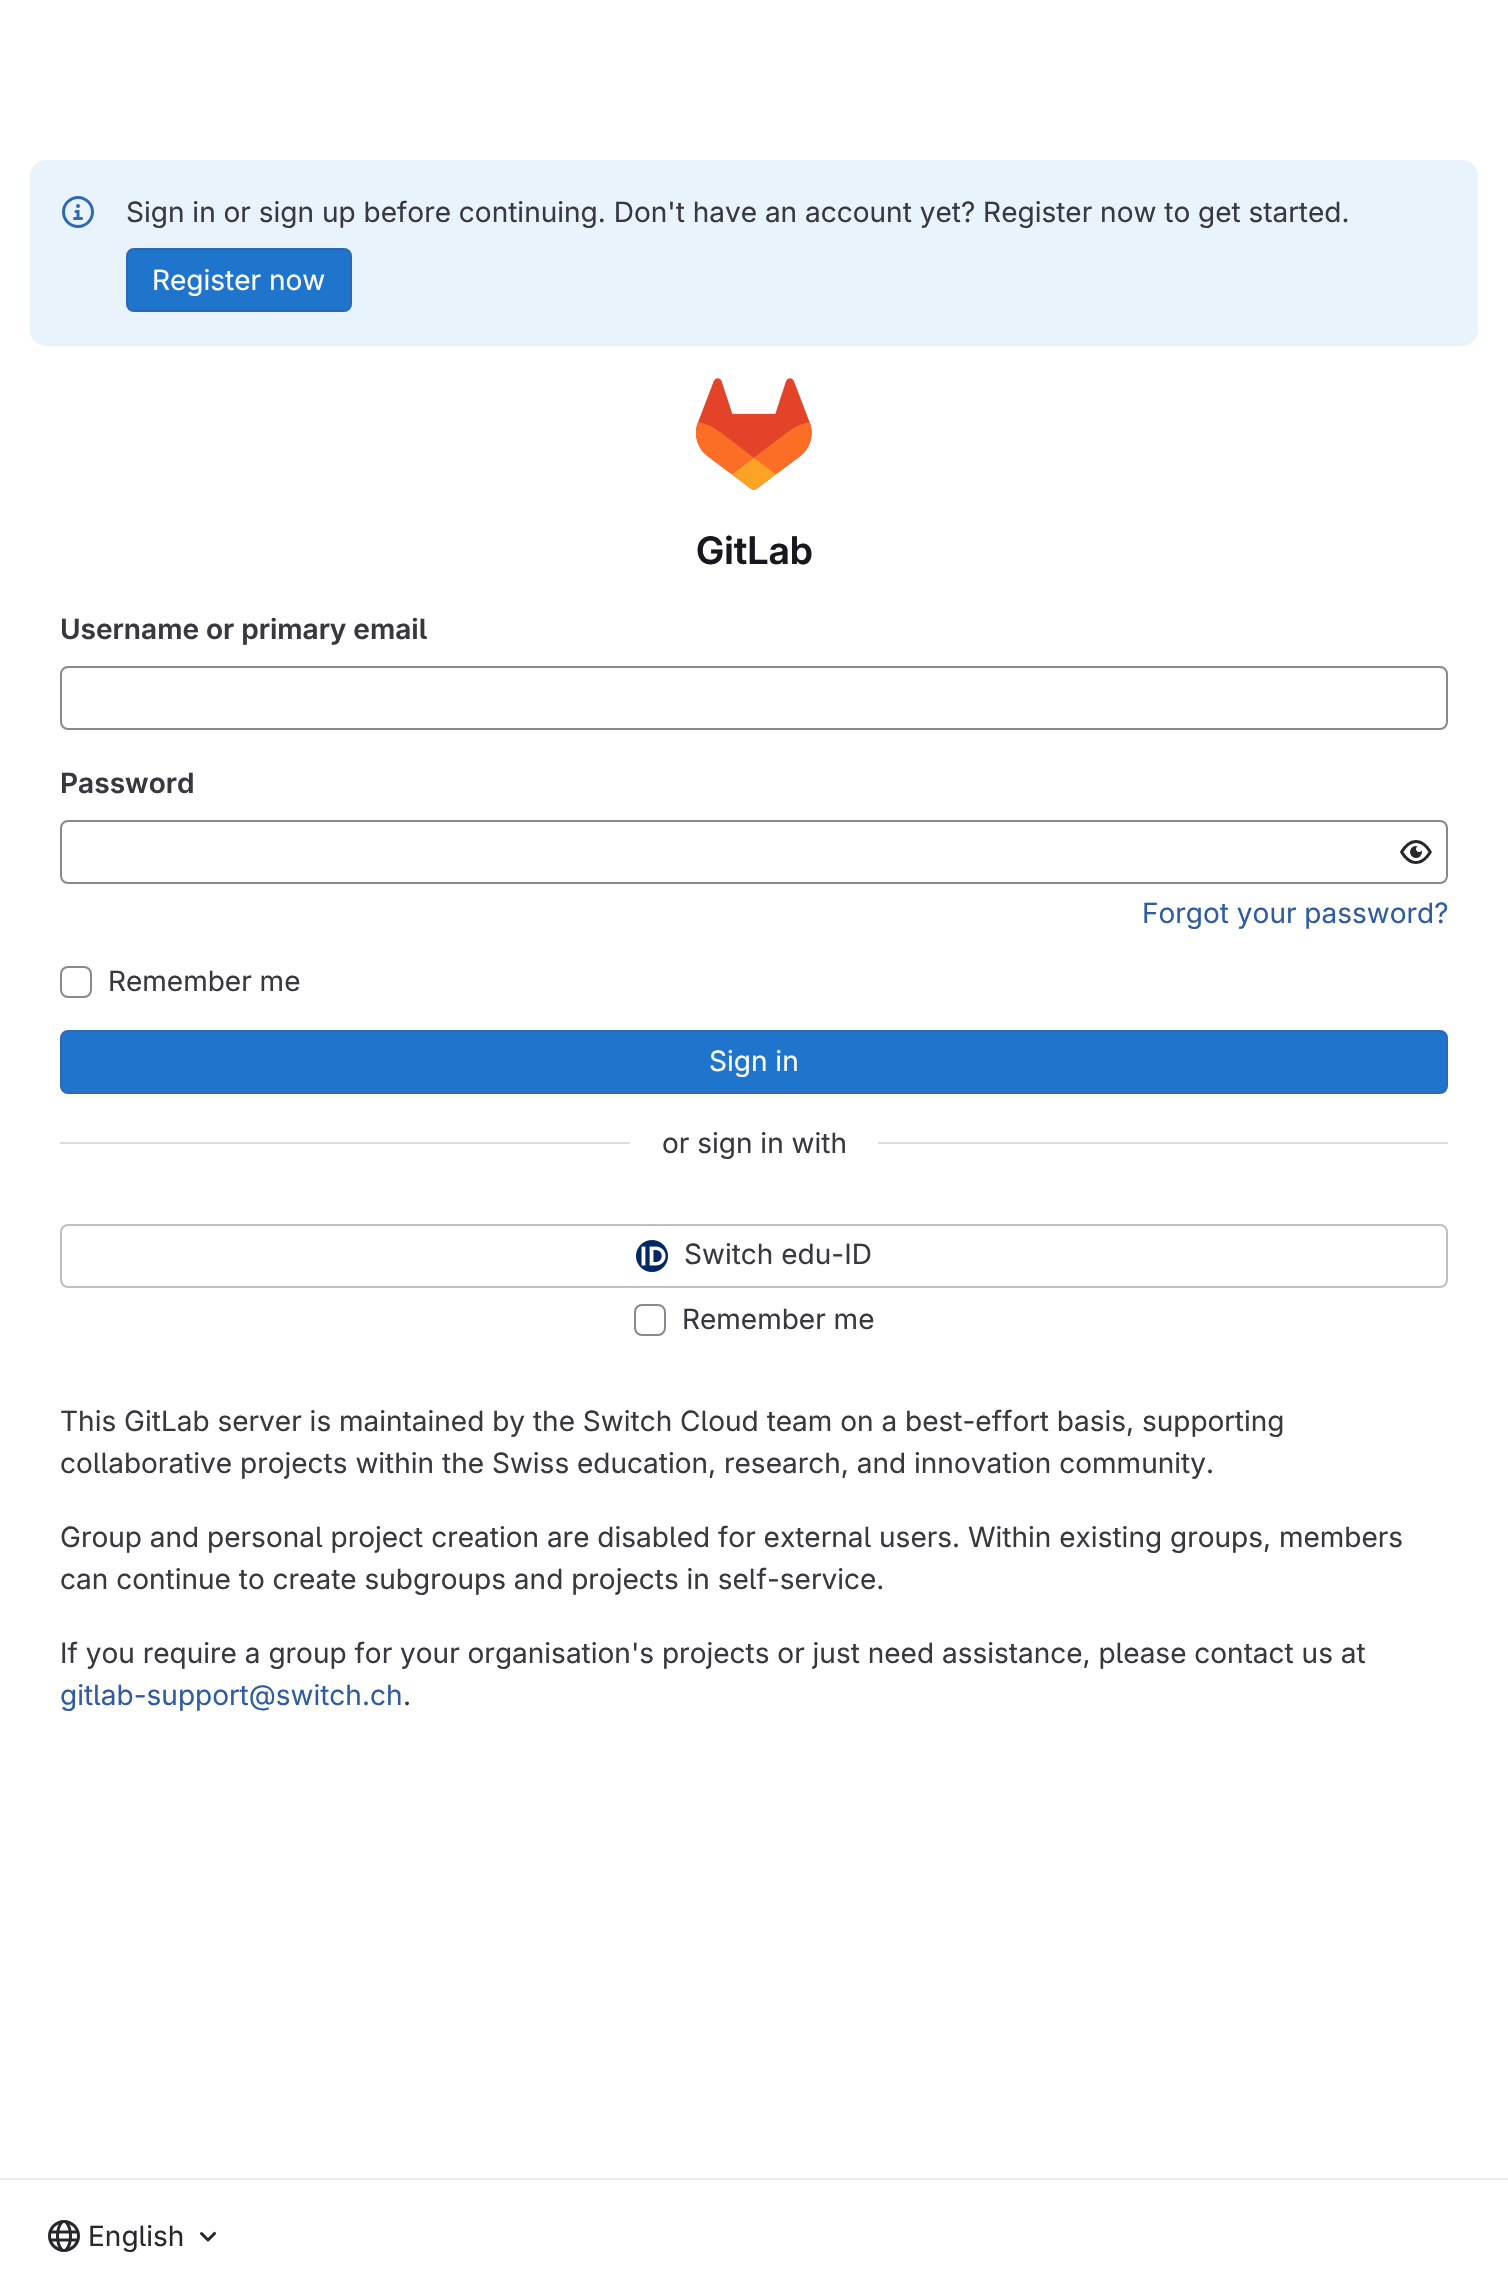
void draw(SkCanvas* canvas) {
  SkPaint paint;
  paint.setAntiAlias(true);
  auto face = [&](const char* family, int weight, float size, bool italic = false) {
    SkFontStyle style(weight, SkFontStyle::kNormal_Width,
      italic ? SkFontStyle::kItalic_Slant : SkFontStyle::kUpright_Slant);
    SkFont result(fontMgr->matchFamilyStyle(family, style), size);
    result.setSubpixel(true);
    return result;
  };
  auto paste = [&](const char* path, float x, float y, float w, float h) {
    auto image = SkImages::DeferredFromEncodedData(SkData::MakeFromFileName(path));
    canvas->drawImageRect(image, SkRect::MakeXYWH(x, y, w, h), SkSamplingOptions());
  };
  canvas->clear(0xffffffff);
  paint.setColor(0xffe9f3fc);
  canvas->drawRoundRect(SkRect::MakeXYWH(30, 160, 1448, 186), 16, 16, paint);
  paste("img/1.png", 62, 196, 32, 32);
  paint.setColor(0xff1f75cb);
  canvas->drawRoundRect(SkRect::MakeXYWH(127, 249, 224, 62), 7, 7, paint);
  paint.setStroke(true);
  paint.setStrokeWidth(2);
  paint.setColor(0xff2f68b4);
  canvas->drawRoundRect(SkRect::MakeXYWH(127, 249, 224, 62), 7, 7, paint);
  paste("img/2.png", 696, 378, 116, 112);
  paint.setColor(0xff89888d);
  canvas->drawRoundRect(SkRect::MakeXYWH(61, 667, 1386, 62), 7, 7, paint);
  canvas->drawRoundRect(SkRect::MakeXYWH(61, 821, 1386, 62), 7, 7, paint);
  paste("img/3.png", 1400, 840, 32, 24);
  canvas->drawRoundRect(SkRect::MakeXYWH(61, 967, 30, 30), 7, 7, paint);
  paint.setStroke(false);
  paint.setColor(0xff1f75cb);
  canvas->drawRoundRect(SkRect::MakeXYWH(61, 1031, 1386, 62), 7, 7, paint);
  paint.setStroke(true);
  paint.setColor(0xff2f68b4);
  canvas->drawRoundRect(SkRect::MakeXYWH(61, 1031, 1386, 62), 7, 7, paint);
  paint.setStroke(false);
  paint.setColor(0xffdcdcde);
  canvas->drawRect(SkRect::MakeXYWH(60, 1142, 570, 2), paint);
  canvas->drawRect(SkRect::MakeXYWH(878, 1142, 570, 2), paint);
  paint.setStroke(true);
  paint.setColor(0xffbfbfc3);
  canvas->drawRoundRect(SkRect::MakeXYWH(61, 1225, 1386, 62), 7, 7, paint);
  paste("img/4.png", 636, 1240, 32, 32);
  paint.setColor(0xff89888d);
  canvas->drawRoundRect(SkRect::MakeXYWH(635, 1305, 30, 30), 7, 7, paint);
  paint.setStroke(false);
  paint.setColor(0xffececef);
  canvas->drawRect(SkRect::MakeXYWH(0, 2178, 1508, 2), paint);
  paste("img/5.png", 48, 2220, 32, 32);
  paste("img/6.png", 200, 2231, 17, 11);
  auto f0 = face("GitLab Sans", 400, 28);
  paint.setColor(0xff3a383f);
  canvas->drawString("Sign in or sign up before continuing. Don't have an account yet? Register now to get started.", 126, 222, f0, paint);
  paint.setColor(0xffffffff);
  canvas->drawString("Register now", 152, 290, f0, paint);
  auto f1 = face("GitLab Sans", 600, 38);
  paint.setColor(0xff18171d);
  canvas->drawString("GitLab", 696, 564, f1, paint);
  auto f2 = face("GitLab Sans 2", 600, 28);
  paint.setColor(0xff3a383f);
  canvas->drawString("Username or primary email", 60, 639, f2, paint);
  canvas->drawString("Password", 60, 793, f2, paint);
  paint.setColor(0xff2f5ca0);
  canvas->drawString("Forgot your password?", 1142, 923, f0, paint);
  paint.setColor(0xff3a383f);
  canvas->drawString("Remember me", 108, 991, f0, paint);
  paint.setColor(0xffffffff);
  canvas->drawString("Sign in", 709, 1071, f0, paint);
  paint.setColor(0xff3a383f);
  {
    const struct { const char* s; float x, y; } items[] = {
      {"or sign in with", 662, 1153},
      {"Switch edu-ID", 684, 1264},
      {"Remember me", 682, 1329},
      {"This GitLab server is maintained by the Switch Cloud team on a best-effort basis, supporting", 60, 1431},
      {"collaborative projects within the Swiss education, research, and innovation community.", 60, 1473},
      {"Group and personal project creation are disabled for external users. Within existing groups, members", 60, 1547},
      {"can continue to create subgroups and projects in self-service.", 60, 1589},
      {"If you require a group for your organisation's projects or just need assistance, please contact us at", 60, 1663},
    };
    for (auto [s, x, y] : items) {
      canvas->drawString(s, x, y, f0, paint);
    }
  }
  paint.setColor(0xff2f5ca0);
  canvas->drawString("gitlab-support@switch.ch", 60, 1705, f0, paint);
  paint.setColor(0xff3a383f);
  canvas->drawString(".", 403, 1705, f0, paint);
  paint.setColor(0xff28272d);
  canvas->drawString("English", 88, 2246, f0, paint);
}
